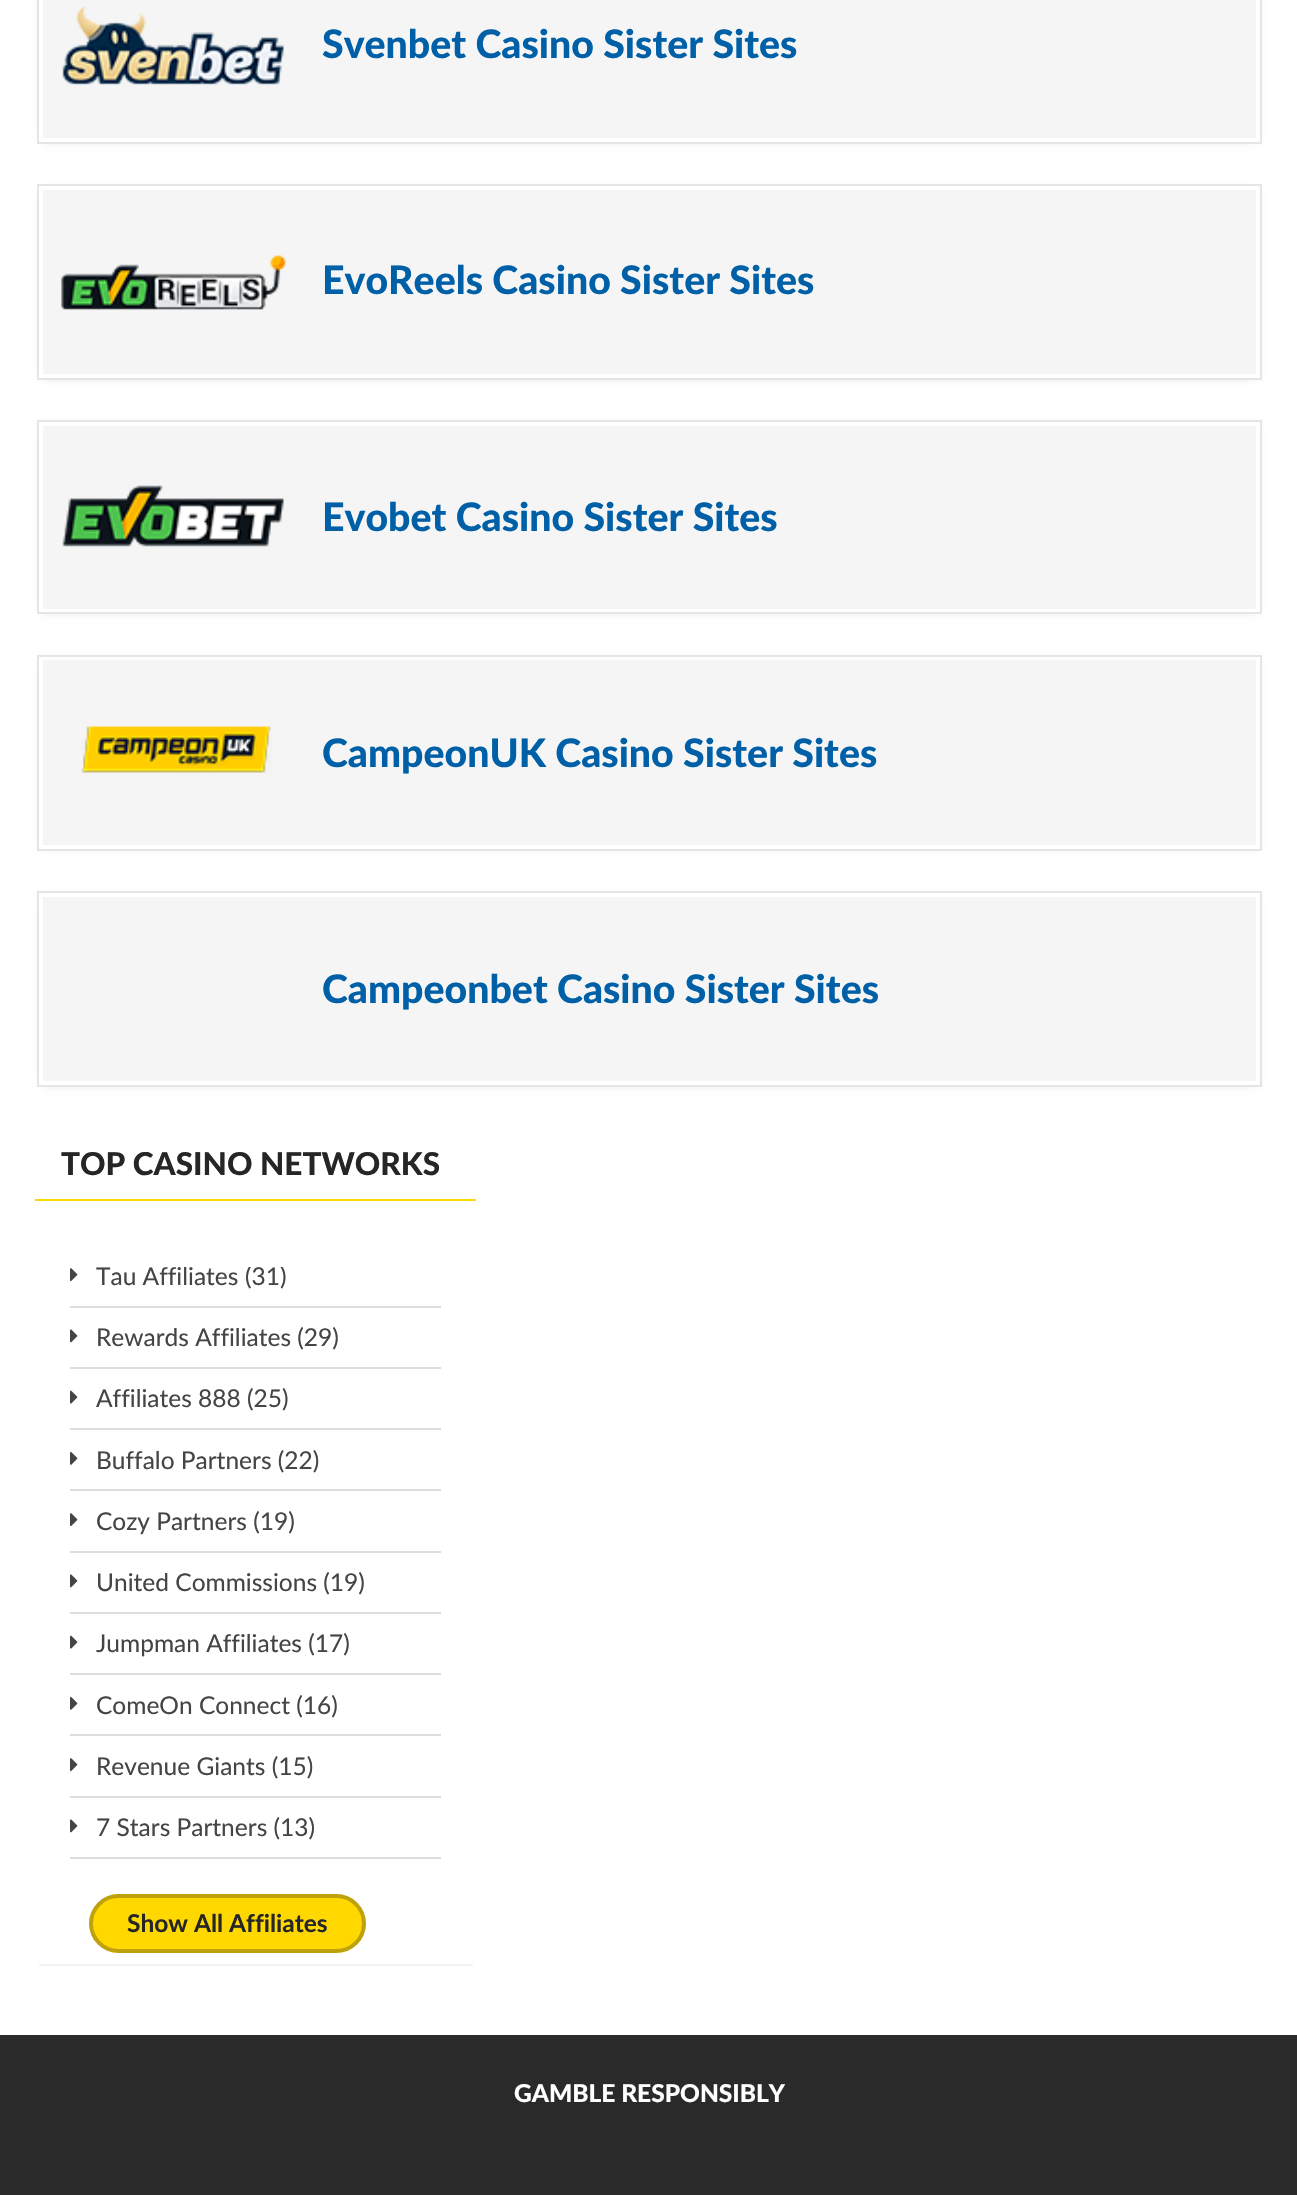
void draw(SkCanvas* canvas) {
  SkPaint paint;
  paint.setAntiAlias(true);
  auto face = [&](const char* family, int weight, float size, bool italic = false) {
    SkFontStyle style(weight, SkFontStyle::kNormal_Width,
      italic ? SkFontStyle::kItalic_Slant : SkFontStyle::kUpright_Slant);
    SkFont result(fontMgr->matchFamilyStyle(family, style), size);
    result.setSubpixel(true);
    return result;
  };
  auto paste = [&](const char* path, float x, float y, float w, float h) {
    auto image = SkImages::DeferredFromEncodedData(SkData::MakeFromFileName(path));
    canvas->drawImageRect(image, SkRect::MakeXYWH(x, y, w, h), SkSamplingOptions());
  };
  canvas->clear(0xffffffff);
  paint.setColor(0xffc2c2c2);
  paint.setMaskFilter(SkMaskFilter::MakeBlur(kNormal_SkBlurStyle, 5));
  canvas->drawRect(SkRect::MakeXYWH(44, -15, 1211, 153), paint);
  paint.setMaskFilter(nullptr);
  paint.setColor(0xfff5f5f5);
  canvas->drawRect(SkRect::MakeXYWH(41, -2, 1217, 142), paint);
  paint.setStroke(true);
  paint.setStrokeWidth(4);
  paint.setColor(0xffffffff);
  canvas->drawRect(SkRect::MakeXYWH(41, -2, 1217, 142), paint);
  paint.setStrokeWidth(2);
  paint.setColor(0xffe5e5e5);
  canvas->drawRect(SkRect::MakeXYWH(38, -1, 1223, 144), paint);
  paste("img/1.png", 62, 6, 222, 79);
  paint.setStroke(false);
  paint.setColor(0xffc2c2c2);
  paint.setMaskFilter(SkMaskFilter::MakeBlur(kNormal_SkBlurStyle, 5));
  canvas->drawRect(SkRect::MakeXYWH(44, 193, 1211, 182), paint);
  paint.setMaskFilter(nullptr);
  paint.setColor(0xfff5f5f5);
  canvas->drawRect(SkRect::MakeXYWH(41, 188, 1217, 188), paint);
  paint.setStroke(true);
  paint.setStrokeWidth(4);
  paint.setColor(0xffffffff);
  canvas->drawRect(SkRect::MakeXYWH(41, 188, 1217, 188), paint);
  paint.setStrokeWidth(2);
  paint.setColor(0xffe5e5e5);
  canvas->drawRect(SkRect::MakeXYWH(38, 185, 1223, 194), paint);
  paste("img/2.png", 61, 255, 225, 55);
  paint.setStroke(false);
  paint.setColor(0xffc2c2c2);
  paint.setMaskFilter(SkMaskFilter::MakeBlur(kNormal_SkBlurStyle, 5));
  canvas->drawRect(SkRect::MakeXYWH(44, 429, 1211, 180), paint);
  paint.setMaskFilter(nullptr);
  paint.setColor(0xfff5f5f5);
  canvas->drawRect(SkRect::MakeXYWH(41, 424, 1217, 187), paint);
  paint.setStroke(true);
  paint.setStrokeWidth(4);
  paint.setColor(0xffffffff);
  canvas->drawRect(SkRect::MakeXYWH(41, 424, 1217, 187), paint);
  paint.setStrokeWidth(2);
  paint.setColor(0xffe5e5e5);
  canvas->drawRect(SkRect::MakeXYWH(38, 421, 1223, 192), paint);
  paste("img/3.png", 62, 485, 222, 62);
  paint.setStroke(false);
  paint.setColor(0xffc2c2c2);
  paint.setMaskFilter(SkMaskFilter::MakeBlur(kNormal_SkBlurStyle, 5));
  canvas->drawRect(SkRect::MakeXYWH(44, 663, 1211, 182), paint);
  paint.setMaskFilter(nullptr);
  paint.setColor(0xfff5f5f5);
  canvas->drawRect(SkRect::MakeXYWH(41, 658, 1217, 189), paint);
  paint.setStroke(true);
  paint.setStrokeWidth(4);
  paint.setColor(0xffffffff);
  canvas->drawRect(SkRect::MakeXYWH(41, 658, 1217, 189), paint);
  paint.setStrokeWidth(2);
  paint.setColor(0xffe5e5e5);
  canvas->drawRect(SkRect::MakeXYWH(38, 656, 1223, 194), paint);
  paste("img/4.png", 81, 726, 191, 47);
  paint.setStroke(false);
  paint.setColor(0xffc2c2c2);
  paint.setMaskFilter(SkMaskFilter::MakeBlur(kNormal_SkBlurStyle, 5));
  canvas->drawRect(SkRect::MakeXYWH(44, 900, 1211, 182), paint);
  paint.setMaskFilter(nullptr);
  paint.setColor(0xfff5f5f5);
  canvas->drawRect(SkRect::MakeXYWH(41, 895, 1217, 188), paint);
  paint.setStroke(true);
  paint.setStrokeWidth(4);
  paint.setColor(0xffffffff);
  canvas->drawRect(SkRect::MakeXYWH(41, 895, 1217, 188), paint);
  paint.setStrokeWidth(2);
  paint.setColor(0xffe5e5e5);
  canvas->drawRect(SkRect::MakeXYWH(38, 892, 1223, 194), paint);
  paint.setStroke(false);
  {
    const struct { float x, y, w, h; SkColor color; } items[] = {
      {39, 1964, 434, 2, 0xfff3f3f3},
      {35, 1199, 441, 2, 0xffffd800},
      {70, 1306, 371, 2, 0xffdddddd},
    };
    for (auto [x, y, w, h, color] : items) {
      paint.setColor(color);
      canvas->drawRect(SkRect::MakeXYWH(x, y, w, h), paint);
    }
  }
  paste("img/5.png", 70, 1268, 8, 14);
  canvas->drawRect(SkRect::MakeXYWH(70, 1367, 371, 2), paint);
  paste("img/6.png", 70, 1329, 8, 14);
  canvas->drawRect(SkRect::MakeXYWH(70, 1428, 371, 2), paint);
  paste("img/7.png", 70, 1390, 8, 14);
  canvas->drawRect(SkRect::MakeXYWH(70, 1489, 371, 2), paint);
  paste("img/8.png", 70, 1451, 8, 14);
  canvas->drawRect(SkRect::MakeXYWH(70, 1551, 371, 2), paint);
  paste("img/5.png", 70, 1513, 8, 14);
  canvas->drawRect(SkRect::MakeXYWH(70, 1612, 371, 2), paint);
  paste("img/6.png", 70, 1574, 8, 14);
  canvas->drawRect(SkRect::MakeXYWH(70, 1673, 371, 2), paint);
  paste("img/7.png", 70, 1635, 8, 14);
  canvas->drawRect(SkRect::MakeXYWH(70, 1734, 371, 2), paint);
  paste("img/8.png", 70, 1696, 8, 14);
  canvas->drawRect(SkRect::MakeXYWH(70, 1796, 371, 2), paint);
  paste("img/5.png", 70, 1758, 8, 14);
  canvas->drawRect(SkRect::MakeXYWH(70, 1857, 371, 2), paint);
  paste("img/6.png", 70, 1819, 8, 14);
  paint.setColor(0xffffd800);
  canvas->drawRoundRect(SkRect::MakeXYWH(89, 1894, 277, 59), 29.5f, 29.5f, paint);
  paint.setStroke(true);
  paint.setStrokeWidth(4);
  paint.setColor(0x4d262626);
  canvas->drawRoundRect(SkRect::MakeXYWH(91, 1896, 273, 55), 27.5f, 27.5f, paint);
  paint.setStroke(false);
  paint.setColor(0xff2a2a2a);
  canvas->drawRect(SkRect::MakeXYWH(0, 2035, 1297, 160), paint);
  auto f0 = face("Lato", 900, 39.25f);
  paint.setColor(0xff0060a7);
  {
    const struct { const char* s; float x, y; } items[] = {
      {"Svenbet Casino Sister Sites", 322, 58},
      {"EvoReels Casino Sister Sites", 322, 294},
      {"Evobet Casino Sister Sites", 322, 531},
      {"CampeonUK Casino Sister Sites", 322, 767},
      {"Campeonbet Casino Sister Sites", 322, 1003},
    };
    for (auto [s, x, y] : items) {
      canvas->drawString(s, x, y, f0, paint);
    }
  }
  auto f1 = face("Lato", 900, 31.5f);
  paint.setColor(0xff262626);
  canvas->drawString("TOP CASINO NETWORKS", 61, 1175, f1, paint);
  auto f2 = face("Lato", 400, 24.5f);
  paint.setColor(0xff464444);
  canvas->drawString("Tau Affiliates", 96, 1285, f2, paint);
  canvas->save();
  canvas->clipRect(SkRect::MakeXYWH(70, 1267, 371, 613));
  canvas->drawString("(31)", 245, 1285, f2, paint);
  canvas->restore();
  {
    const struct { const char* s; float x, y; } items[] = {
      {"Rewards Affiliates (29)", 96, 1346},
      {"Affiliates 888 (25)", 96, 1407},
      {"Buffalo Partners (22)", 96, 1469},
      {"Cozy Partners (19)", 96, 1530},
      {"United Commissions (19)", 96, 1591},
      {"Jumpman Affiliates (17)", 96, 1652},
      {"ComeOn Connect (16)", 96, 1714},
      {"Revenue Giants (15)", 96, 1775},
      {"7 Stars Partners (13)", 96, 1836},
    };
    for (auto [s, x, y] : items) {
      canvas->drawString(s, x, y, f2, paint);
    }
  }
  auto f3 = face("Lato", 700, 24.5f);
  paint.setColor(0xff262626);
  canvas->drawString("Show All Affiliates", 127, 1932, f3, paint);
  auto f4 = face("Lato", 900, 24.5f);
  paint.setColor(0xffffffff);
  canvas->drawString("GAMBLE RESPONSIBLY", 514, 2102, f4, paint);
}
